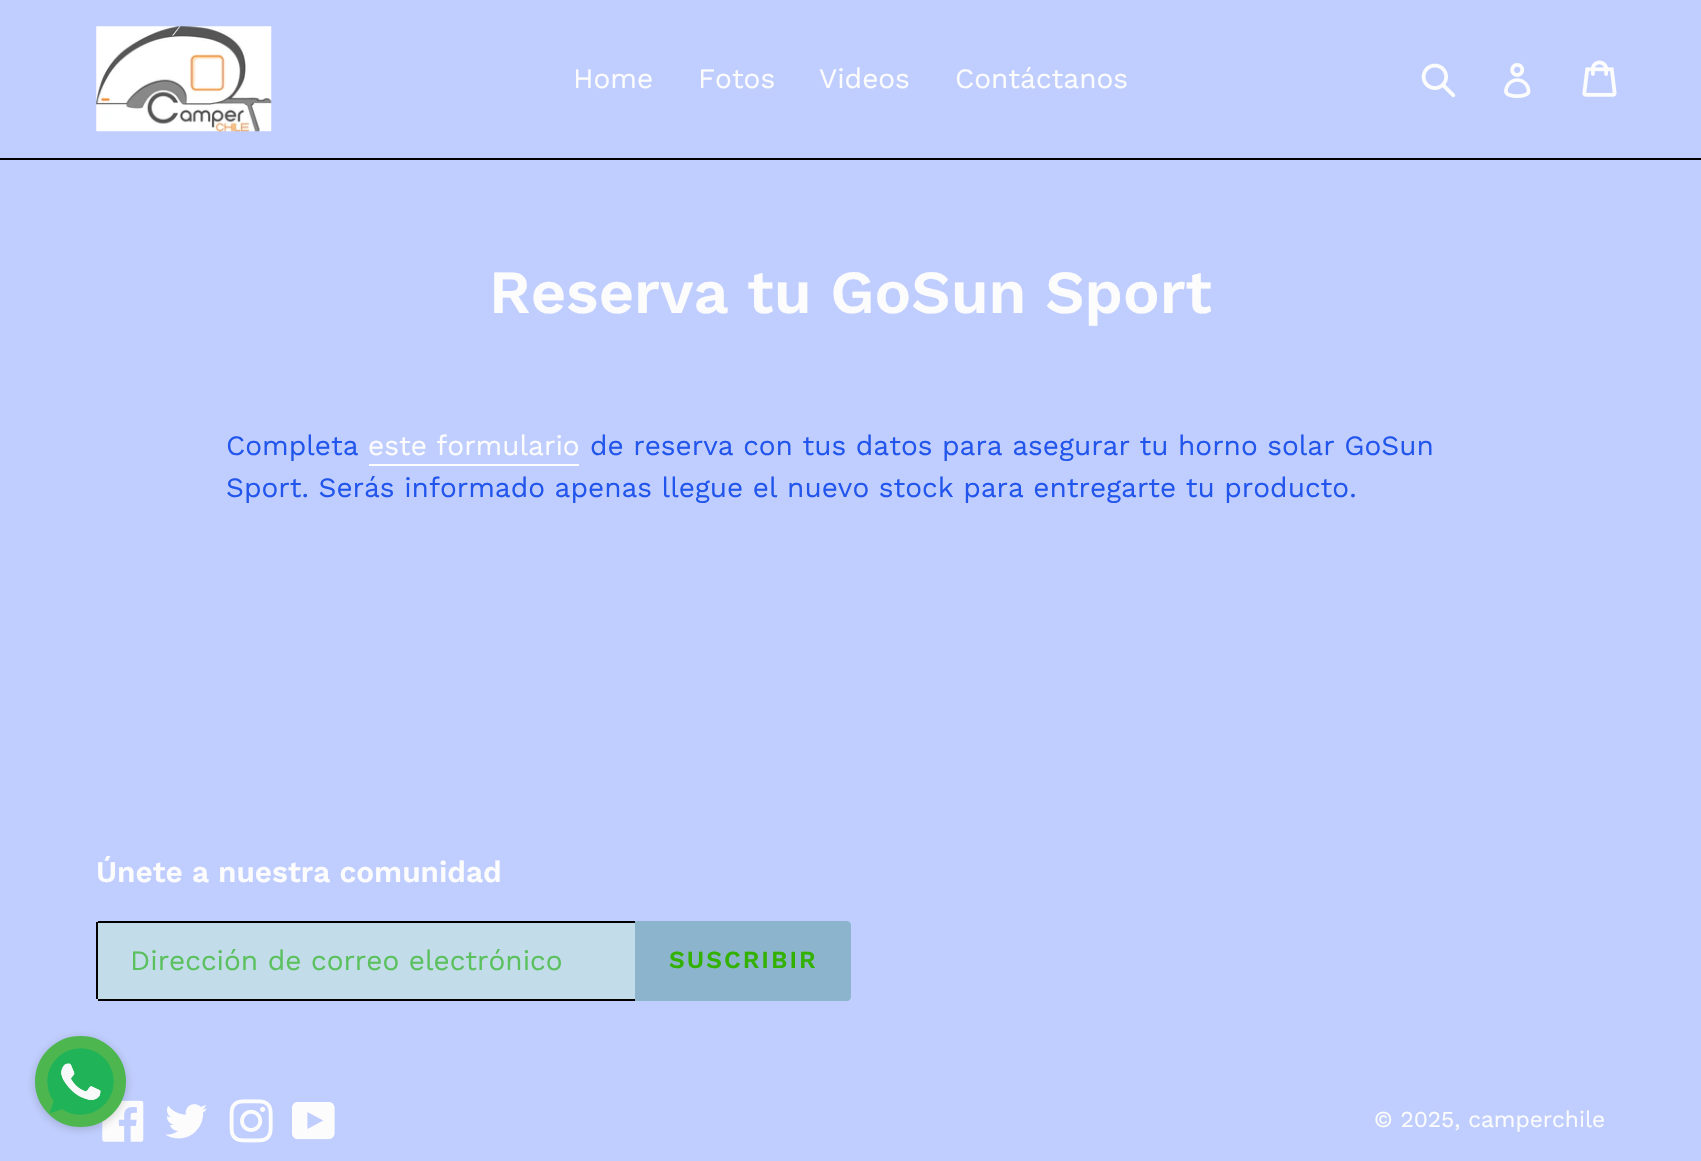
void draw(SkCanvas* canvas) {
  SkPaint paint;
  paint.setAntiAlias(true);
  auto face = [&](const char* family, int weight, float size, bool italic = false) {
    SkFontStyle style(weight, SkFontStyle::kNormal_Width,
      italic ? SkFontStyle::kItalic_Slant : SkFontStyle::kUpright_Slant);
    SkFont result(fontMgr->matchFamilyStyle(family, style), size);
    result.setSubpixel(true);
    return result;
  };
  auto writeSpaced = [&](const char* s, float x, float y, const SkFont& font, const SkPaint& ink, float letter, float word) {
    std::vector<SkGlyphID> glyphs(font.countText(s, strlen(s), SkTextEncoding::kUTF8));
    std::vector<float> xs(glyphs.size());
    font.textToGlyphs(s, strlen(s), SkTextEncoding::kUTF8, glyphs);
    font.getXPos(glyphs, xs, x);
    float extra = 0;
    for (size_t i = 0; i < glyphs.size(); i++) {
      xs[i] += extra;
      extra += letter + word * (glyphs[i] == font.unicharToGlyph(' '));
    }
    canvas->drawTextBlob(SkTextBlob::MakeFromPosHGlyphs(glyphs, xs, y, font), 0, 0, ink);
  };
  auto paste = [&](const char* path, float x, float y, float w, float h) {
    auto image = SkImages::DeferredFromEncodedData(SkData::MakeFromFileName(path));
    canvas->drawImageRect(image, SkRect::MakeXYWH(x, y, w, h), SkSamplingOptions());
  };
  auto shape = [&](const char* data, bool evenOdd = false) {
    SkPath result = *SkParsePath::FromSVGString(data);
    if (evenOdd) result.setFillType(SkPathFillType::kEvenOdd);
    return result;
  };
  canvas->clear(0xffc0ceff);
  paint.setColor(0xff000000);
  canvas->drawRect(SkRect::MakeXYWH(0, 158, 1701, 2), paint);
  paste("img/1.png", 96, 26, 176, 106);
  paste("img/2.png", 1421, 63, 35, 35);
  paste("img/3.png", 1504, 63, 27, 35);
  paste("img/4.png", 1582, 60, 35, 37);
  paste("img/6.png", 102, 1100, 42, 42);
  paint.setColor(0x331b1b1b);
  paint.setMaskFilter(SkMaskFilter::MakeBlur(kNormal_SkBlurStyle, 5));
  canvas->drawRoundRect(SkRect::MakeXYWH(35, 1038, 91, 91), 45.5f, 45.5f, paint);
  paint.setMaskFilter(nullptr);
  paint.setColor(0xff4eb64f);
  canvas->drawCircle(80.5f, 1081.5f, 44.5f, paint);
  paint.setStroke(true);
  paint.setStrokeWidth(2);
  canvas->drawCircle(80.5f, 1081.5f, 44.5f, paint);
  paste("img/5.png", 47, 1048, 67, 67);
  paint.setStroke(false);
  paint.setColor(0xfffcfcfc);
  canvas->drawRect(SkRect::MakeXYWH(369, 464, 210, 2), paint);
  paint.setColor(0xffc2dde9);
  canvas->drawPath(shape("M100 921H635V1001H100C98 1001 96 999 96 997V925C96 923 98 921 100 921Z"), paint);
  {
    const struct { float x, y, w, h; SkColor color; } items[] = {
      {98, 921, 537, 2, 0xff000000},
      {98, 999, 537, 2, 0xff000000},
      {96, 922, 2, 77, 0xff000000},
    };
    for (auto [x, y, w, h, color] : items) {
      paint.setColor(color);
      canvas->drawRect(SkRect::MakeXYWH(x, y, w, h), paint);
    }
  }
  paint.setColor(0xff8cb4cc);
  canvas->drawPath(shape("M635 921H847C849 921 851 923 851 925V997C851 999 849 1001 847 1001H635Z"), paint);
  paste("img/7.png", 165, 1104, 42, 35);
  paste("img/8.png", 229, 1099, 44, 44);
  paste("img/9.png", 292, 1102, 43, 38);
  auto f0 = face("Work Sans", 400, 28);
  paint.setColor(0xfffcfcfc);
  {
    const struct { const char* s; float x, y; } items[] = {
      {"Home", 573, 88},
      {"Fotos", 698, 88},
      {"Videos", 819, 88},
      {"Contáctanos", 955, 88},
    };
    for (auto [s, x, y] : items) {
      canvas->drawString(s, x, y, f0, paint);
    }
  }
  auto f1 = face("Work Sans", 600, 61.25f);
  canvas->drawString("Reserva tu GoSun Sport", 489, 313, f1, paint);
  paint.setColor(0xff2155eb);
  canvas->drawString("Completa", 226, 455, f0, paint);
  paint.setColor(0xfffcfcfc);
  canvas->drawString("este formulario", 368, 455, f0, paint);
  paint.setColor(0xff2155eb);
  canvas->drawString("de reserva con tus datos para asegurar tu horno solar GoSun", 590, 455, f0, paint);
  canvas->drawString("Sport. Serás informado apenas llegue el nuevo stock para entregarte tu producto.", 226, 497, f0, paint);
  auto f2 = face("Work Sans", 600, 29.75f);
  paint.setColor(0xfffcfcfc);
  canvas->drawString("Únete a nuestra comunidad", 96, 882, f2, paint);
  paint.setColor(0xff5bc05e);
  canvas->drawString("Dirección de correo electrónico", 130, 970, f0, paint);
  auto f3 = face("Work Sans", 600, 24.5f);
  paint.setColor(0xff33b100);
  writeSpaced("SUSCRIBIR", 669, 968, f3, paint, 2, 0);
  auto f4 = face("Work Sans", 400, 22.75f);
  paint.setColor(0xfffcfcfc);
  canvas->drawString("© 2025, camperchile", 1374, 1127, f4, paint);
}
